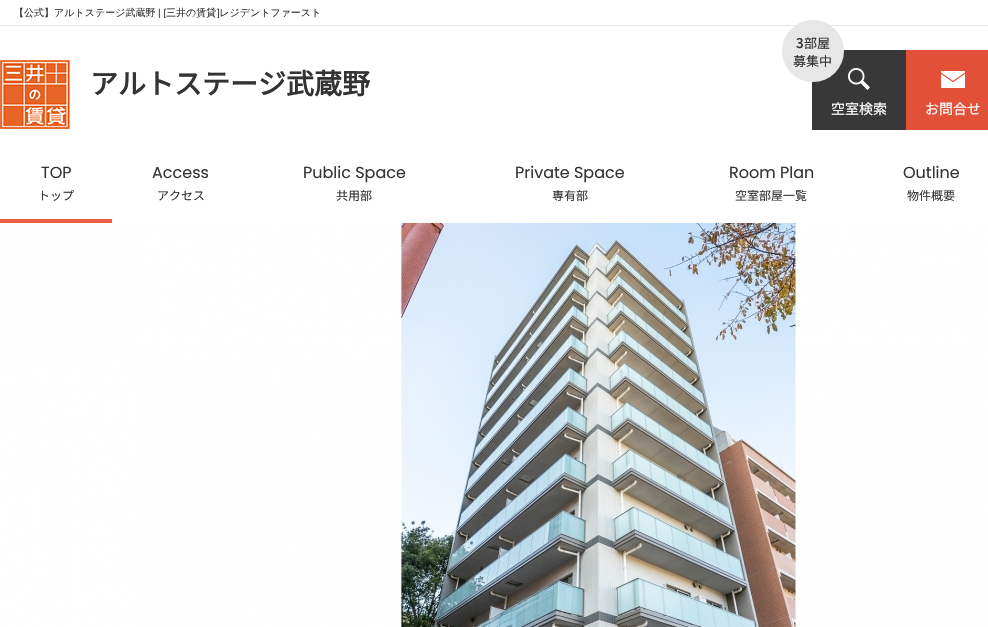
void draw(SkCanvas* canvas) {
  SkPaint paint;
  paint.setAntiAlias(true);
  auto face = [&](const char* family, int weight, float size, bool italic = false) {
    SkFontStyle style(weight, SkFontStyle::kNormal_Width,
      italic ? SkFontStyle::kItalic_Slant : SkFontStyle::kUpright_Slant);
    SkFont result(fontMgr->matchFamilyStyle(family, style), size);
    result.setSubpixel(true);
    return result;
  };
  auto paste = [&](const char* path, float x, float y, float w, float h) {
    auto image = SkImages::DeferredFromEncodedData(SkData::MakeFromFileName(path));
    canvas->drawImageRect(image, SkRect::MakeXYWH(x, y, w, h), SkSamplingOptions());
  };
  canvas->clear(0xffffffff);
  paint.setColor(0xffe6e6e6);
  canvas->drawRect(SkRect::MakeXYWH(0, 25, 988, 1), paint);
  paste("img/1.png", 0, 60, 70, 69);
  paint.setColor(0xff383838);
  canvas->drawRect(SkRect::MakeXYWH(812, 50, 94, 80), paint);
  paint.setColor(0xffe7e7e7);
  canvas->drawCircle(813, 51, 31, paint);
  paste("img/2.png", 848, 68, 22, 22);
  paint.setColor(0xffe25137);
  canvas->drawRect(SkRect::MakeXYWH(906, 50, 82, 80), paint);
  paste("img/3.png", 941, 71, 24, 17);
  paint.setColor(0xffeb6044);
  canvas->drawRect(SkRect::MakeXYWH(0, 219, 112, 4), paint);
  paste("img/4.png", 0, 223, 988, 404);
  auto f0 = face("WenQuanYi Zen Hei", 500, 10);
  paint.setColor(0xff333333);
  canvas->drawString("【公式】アルトステージ武蔵野", 14, 16, f0, paint);
  auto f1 = face("Liberation Sans", 400, 10);
  canvas->drawString("| [", 158, 16, f1, paint);
  canvas->drawString("三井の賃貸 レジデントファースト", 166, 16, f0, paint);
  canvas->drawString("]", 217, 16, f1, paint);
  auto f2 = face("Noto Sans CJK JP", 700, 28);
  canvas->drawString("アルトステージ武蔵野", 90, 94, f2, paint);
  auto f3 = face("Noto Sans CJK JP", 700, 13);
  canvas->drawString("3", 796, 48, f3, paint);
  auto f4 = face("Noto Sans CJK JP", 400, 13);
  canvas->drawString("部屋", 804, 48, f4, paint);
  canvas->drawString("募集中", 793, 66, f4, paint);
  auto f5 = face("Noto Sans CJK JP", 400, 14);
  paint.setColor(0xffffffff);
  canvas->drawString("空室検索", 831, 114, f5, paint);
  canvas->drawString("お問合せ", 925, 114, f5, paint);
  auto f6 = face("Poppins", 400, 16);
  paint.setColor(0xff333333);
  canvas->drawString("TOP", 41, 178, f6, paint);
  auto f7 = face("Noto Sans CJK JP", 400, 12);
  canvas->drawString("トップ", 38, 200, f7, paint);
  canvas->drawString("Access", 152, 178, f6, paint);
  canvas->drawString("アクセス", 157, 200, f7, paint);
  canvas->drawString("Public Space", 303, 178, f6, paint);
  canvas->drawString("共用部", 336, 200, f7, paint);
  canvas->drawString("Private Space", 515, 178, f6, paint);
  canvas->drawString("専有部", 552, 200, f7, paint);
  canvas->drawString("Room Plan", 729, 178, f6, paint);
  canvas->drawString("空室部屋一覧", 735, 200, f7, paint);
  canvas->drawString("Outline", 903, 178, f6, paint);
  canvas->drawString("物件概要", 907, 200, f7, paint);
}
